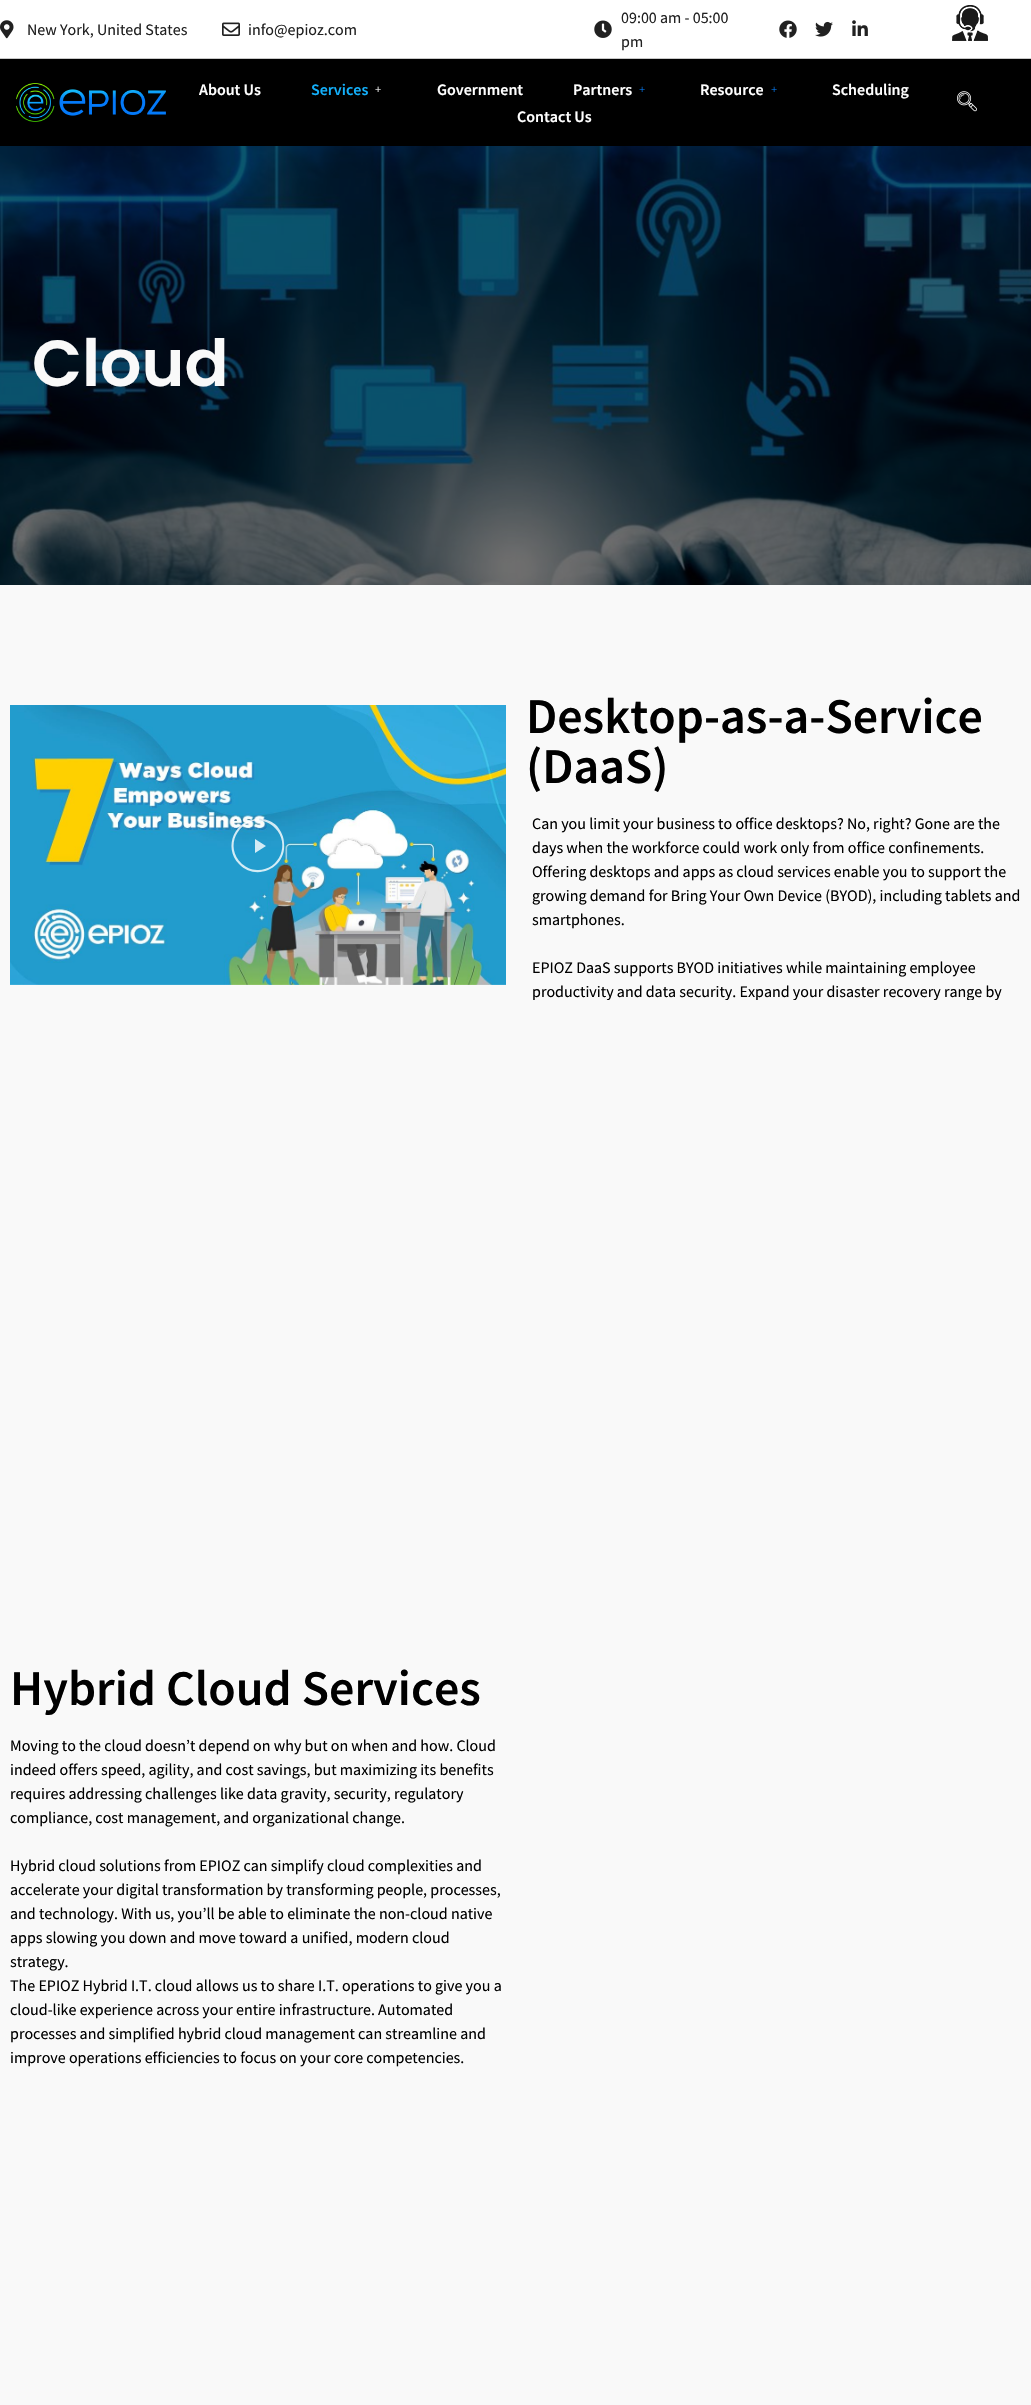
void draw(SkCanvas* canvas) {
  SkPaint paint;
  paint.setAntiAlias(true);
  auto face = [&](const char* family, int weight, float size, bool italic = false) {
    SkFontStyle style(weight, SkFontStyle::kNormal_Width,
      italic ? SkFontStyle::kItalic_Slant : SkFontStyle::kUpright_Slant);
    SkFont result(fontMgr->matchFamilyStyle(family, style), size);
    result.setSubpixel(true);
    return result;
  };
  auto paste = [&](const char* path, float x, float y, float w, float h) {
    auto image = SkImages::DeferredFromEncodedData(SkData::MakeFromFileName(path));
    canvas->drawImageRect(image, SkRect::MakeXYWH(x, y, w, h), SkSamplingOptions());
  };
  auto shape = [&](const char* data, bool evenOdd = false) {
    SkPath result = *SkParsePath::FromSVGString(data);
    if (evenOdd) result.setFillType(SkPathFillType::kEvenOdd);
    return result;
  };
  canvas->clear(0xffffffff);
  paint.setColor(0xffc8c8c8);
  canvas->drawRect(SkRect::MakeXYWH(0, 58, 1031, 1), paint);
  paste("img/1.png", 0, 20, 14, 19);
  paste("img/2.png", 222, 22, 18, 14);
  paste("img/3.png", 594, 20, 18, 18);
  paste("img/4.png", 779, 20, 18, 18);
  paste("img/5.png", 815, 21, 18, 16);
  paste("img/6.png", 852, 20, 16, 16);
  paste("img/7.png", 952, 5, 36, 36);
  paint.setColor(0xff000000);
  canvas->drawRect(SkRect::MakeXYWH(0, 59, 1031, 87), paint);
  paste("img/8.png", 16, 83, 150, 39);
  paste("img/9.png", 957, 91, 20, 21);
  paste("img/10.png", 0, 146, 1031, 439);
  paint.setColor(0xfff9f9f9);
  canvas->drawRect(SkRect::MakeXYWH(0, 585, 1031, 1820), paint);
  paste("img/11.png", 10, 705, 496, 280);
  paint.setColor(0xccffffff);
  canvas->drawPath(shape("M277 826C273 822 267 819 261 819C236 817 222 846 239 864C256 882 287 868 284 843C284 837 281 831 277 826ZM275 828C291 844 279 871 257 870C251 870 246 867 242 864C218 841 251 805 275 828ZM255 839V853L266 846Z"), paint);
  auto f0 = face("Source Sans Pro", 400, 16);
  paint.setColor(0xff212121);
  {
    const struct { const char* s; float x, y; } items[] = {
      {"New York, United States", 27, 35},
      {"info@epioz.com", 248, 35},
      {"09:00 am - 05:00", 621, 23},
      {"pm", 621, 47},
    };
    for (auto [s, x, y] : items) {
      canvas->drawString(s, x, y, f0, paint);
    }
  }
  auto f1 = face("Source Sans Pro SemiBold", 600, 16);
  paint.setColor(0xffffffff);
  canvas->drawString("About Us", 199, 95, f1, paint);
  paint.setColor(0xff13b0fb);
  canvas->drawString("Services", 311, 95, f1, paint);
  auto f2 = face("Liberation Serif", 400, 11);
  paint.setColor(0xffffffff);
  canvas->drawString("+", 375, 93, f2, paint);
  canvas->drawString("Government", 437, 95, f1, paint);
  canvas->drawString("Partners", 573, 95, f1, paint);
  paint.setColor(0xff057efb);
  canvas->drawString("+", 639, 93, f2, paint);
  paint.setColor(0xffffffff);
  canvas->drawString("Resource", 700, 95, f1, paint);
  paint.setColor(0xff057efb);
  canvas->drawString("+", 771, 93, f2, paint);
  paint.setColor(0xffffffff);
  canvas->drawString("Scheduling", 832, 95, f1, paint);
  canvas->drawString("Contact Us", 517, 122, f1, paint);
  auto f3 = face("Poppins", 600, 65);
  paint.setColor(0xfff9f9f9);
  canvas->drawString("Cloud", 32, 386, f3, paint);
  auto f4 = face("Source Sans Pro SemiBold", 600, 50);
  paint.setColor(0xff000000);
  canvas->drawString("Desktop-as-a-Service", 526, 733, f4, paint);
  canvas->drawString("(DaaS)", 526, 783, f4, paint);
  {
    const struct { const char* s; float x, y; } items[] = {
      {"Can you limit your business to office desktops? No, right? Gone are the", 532, 829},
      {"days when the workforce could work only from office confinements.", 532, 853},
      {"Offering desktops and apps as cloud services enable you to support the", 532, 877},
      {"growing demand for Bring Your Own Device (BYOD), including tablets and", 532, 901},
      {"smartphones.", 532, 925},
      {"EPIOZ DaaS supports BYOD initiatives while maintaining employee", 532, 973},
    };
    for (auto [s, x, y] : items) {
      canvas->drawString(s, x, y, f0, paint);
    }
  }
  canvas->save();
  canvas->clipRect(SkRect::MakeXYWH(532, 811, 489, 189));
  canvas->drawString("productivity and data security. Expand your disaster recovery range by", 532, 997, f0, paint);
  canvas->restore();
  canvas->drawString("Hybrid Cloud Services", 10, 1705, f4, paint);
  {
    const struct { const char* s; float x, y; } items[] = {
      {"Moving to the cloud doesn’t depend on why but on when and how. Cloud", 10, 1751},
      {"indeed offers speed, agility, and cost savings, but maximizing its benefits", 10, 1775},
      {"requires addressing challenges like data gravity, security, regulatory", 10, 1799},
      {"compliance, cost management, and organizational change.", 10, 1823},
      {"Hybrid cloud solutions from EPIOZ can simplify cloud complexities and", 10, 1871},
      {"accelerate your digital transformation by transforming people, processes,", 10, 1895},
      {"and technology. With us, you’ll be able to eliminate the non-cloud native", 10, 1919},
      {"apps slowing you down and move toward a unified, modern cloud", 10, 1943},
      {"strategy.", 10, 1967},
      {"The EPIOZ Hybrid I.T. cloud allows us to share I.T. operations to give you a", 10, 1991},
      {"cloud-like experience across your entire infrastructure. Automated", 10, 2015},
      {"processes and simplified hybrid cloud management can streamline and", 10, 2039},
      {"improve operations efficiencies to focus on your core competencies.", 10, 2063},
    };
    for (auto [s, x, y] : items) {
      canvas->drawString(s, x, y, f0, paint);
    }
  }
}
